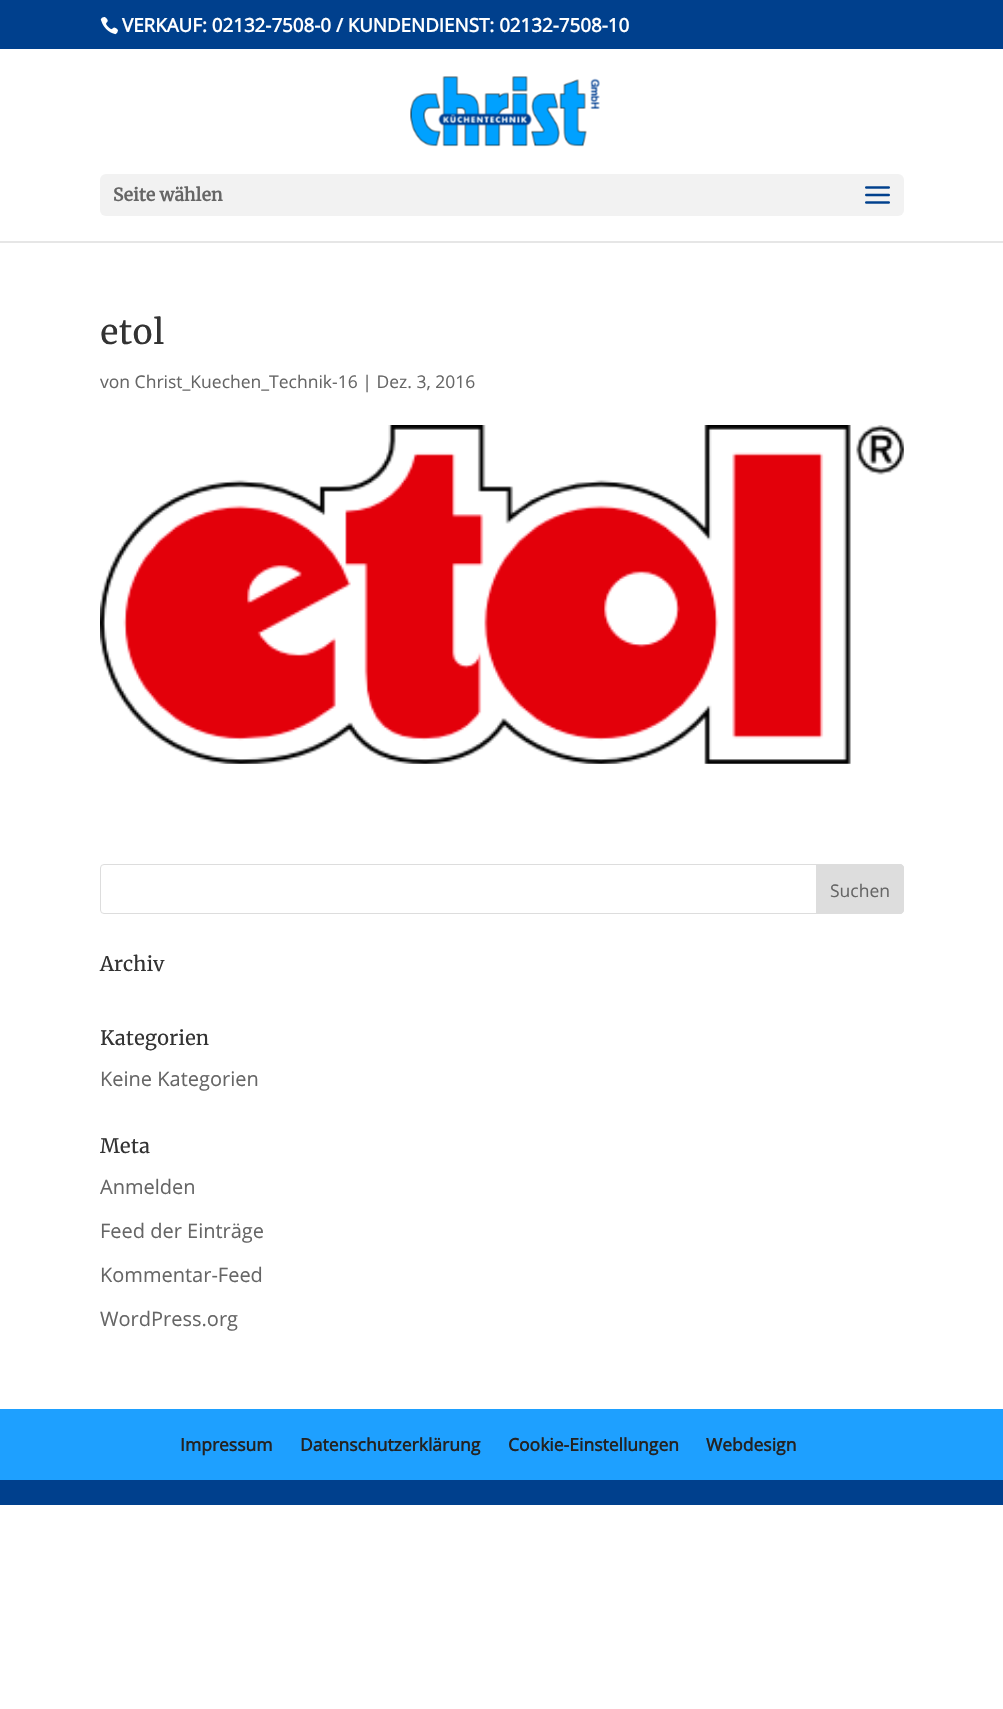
void draw(SkCanvas* canvas) {
  SkPaint paint;
  paint.setAntiAlias(true);
  auto face = [&](const char* family, int weight, float size, bool italic = false) {
    SkFontStyle style(weight, SkFontStyle::kNormal_Width,
      italic ? SkFontStyle::kItalic_Slant : SkFontStyle::kUpright_Slant);
    SkFont result(fontMgr->matchFamilyStyle(family, style), size);
    result.setSubpixel(true);
    return result;
  };
  auto paste = [&](const char* path, float x, float y, float w, float h) {
    auto image = SkImages::DeferredFromEncodedData(SkData::MakeFromFileName(path));
    canvas->drawImageRect(image, SkRect::MakeXYWH(x, y, w, h), SkSamplingOptions());
  };
  auto shape = [&](const char* data, bool evenOdd = false) {
    SkPath result = *SkParsePath::FromSVGString(data);
    if (evenOdd) result.setFillType(SkPathFillType::kEvenOdd);
    return result;
  };
  canvas->clear(0xffffffff);
  paint.setColor(0xff00408d);
  canvas->drawRect(SkRect::MakeXYWH(0, 0, 1003, 49), paint);
  paste("img/1.png", 100, 17, 18, 18);
  paint.setColor(0xffe6e6e6);
  canvas->drawPath(shape("M0 241V243H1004V50V241Z"), paint);
  paste("img/2.png", 410, 76, 190, 71);
  paint.setColor(0xfff2f2f2);
  canvas->drawRoundRect(SkRect::MakeXYWH(100, 174, 804, 42), 6, 6, paint);
  paste("img/3.png", 865, 186, 25, 18);
  paste("img/4.png", 100, 425, 804, 339);
  paint.setStroke(true);
  paint.setStrokeWidth(1);
  paint.setColor(0xffdddddd);
  canvas->drawRoundRect(SkRect::MakeXYWH(100.5f, 864.5f, 803, 49), 3.5f, 3.5f, paint);
  paint.setStroke(false);
  canvas->drawPath(shape("M816.5 864.5H900C902 864.5 903.5 866 903.5 868V910C903.5 912 902 913.5 900 913.5H816.5Z"), paint);
  paint.setStroke(true);
  canvas->drawPath(shape("M816.5 864.5H900C902 864.5 903.5 866 903.5 868V910C903.5 912 902 913.5 900 913.5H816.5Z"), paint);
  paint.setStroke(false);
  paint.setColor(0xff1ea0ff);
  canvas->drawRect(SkRect::MakeXYWH(0, 1409, 1003, 71), paint);
  paint.setColor(0xff00408d);
  canvas->drawRect(SkRect::MakeXYWH(0, 1480, 1003, 25), paint);
  auto f0 = face("Open Sans", 700, 18.75f);
  paint.setColor(0xffffffff);
  canvas->drawString("VERKAUF: 02132-7508-0 / KUNDENDIENST: 02132-7508-10", 122, 32, f0, paint);
  auto f1 = face("Merriweather", 700, 17.5f);
  paint.setColor(0xff666666);
  canvas->drawString("Seite wählen", 113, 201, f1, paint);
  auto f2 = face("Merriweather", 400, 34);
  paint.setColor(0xff333333);
  canvas->drawString("etol", 100, 344, f2, paint);
  auto f3 = face("Open Sans", 400, 17.5f);
  paint.setColor(0xff666666);
  canvas->drawString("von Christ_Kuechen_Technik-16 | Dez. 3, 2016", 100, 388, f3, paint);
  canvas->drawString("Suchen", 830, 897, f3, paint);
  auto f4 = face("Merriweather", 400, 20);
  paint.setColor(0xff333333);
  canvas->drawString("Archiv", 100, 971, f4, paint);
  canvas->drawString("Kategorien", 100, 1045, f4, paint);
  auto f5 = face("Open Sans", 400, 20);
  paint.setColor(0xff666666);
  canvas->drawString("Keine Kategorien", 100, 1086, f5, paint);
  paint.setColor(0xff333333);
  canvas->drawString("Meta", 100, 1153, f4, paint);
  paint.setColor(0xff666666);
  {
    const struct { const char* s; float x, y; } items[] = {
      {"Anmelden", 100, 1194},
      {"Feed der Einträge", 100, 1238},
      {"Kommentar-Feed", 100, 1282},
      {"WordPress.org", 100, 1326},
    };
    for (auto [s, x, y] : items) {
      canvas->drawString(s, x, y, f5, paint);
    }
  }
  auto f6 = face("Open Sans", 700, 17.5f);
  paint.setColor(0xff232323);
  {
    const struct { const char* s; float x, y; } items[] = {
      {"Impressum", 180, 1451},
      {"Datenschutzerklärung", 300, 1451},
      {"Cookie-Einstellungen", 508, 1451},
      {"Webdesign", 706, 1451},
    };
    for (auto [s, x, y] : items) {
      canvas->drawString(s, x, y, f6, paint);
    }
  }
}
